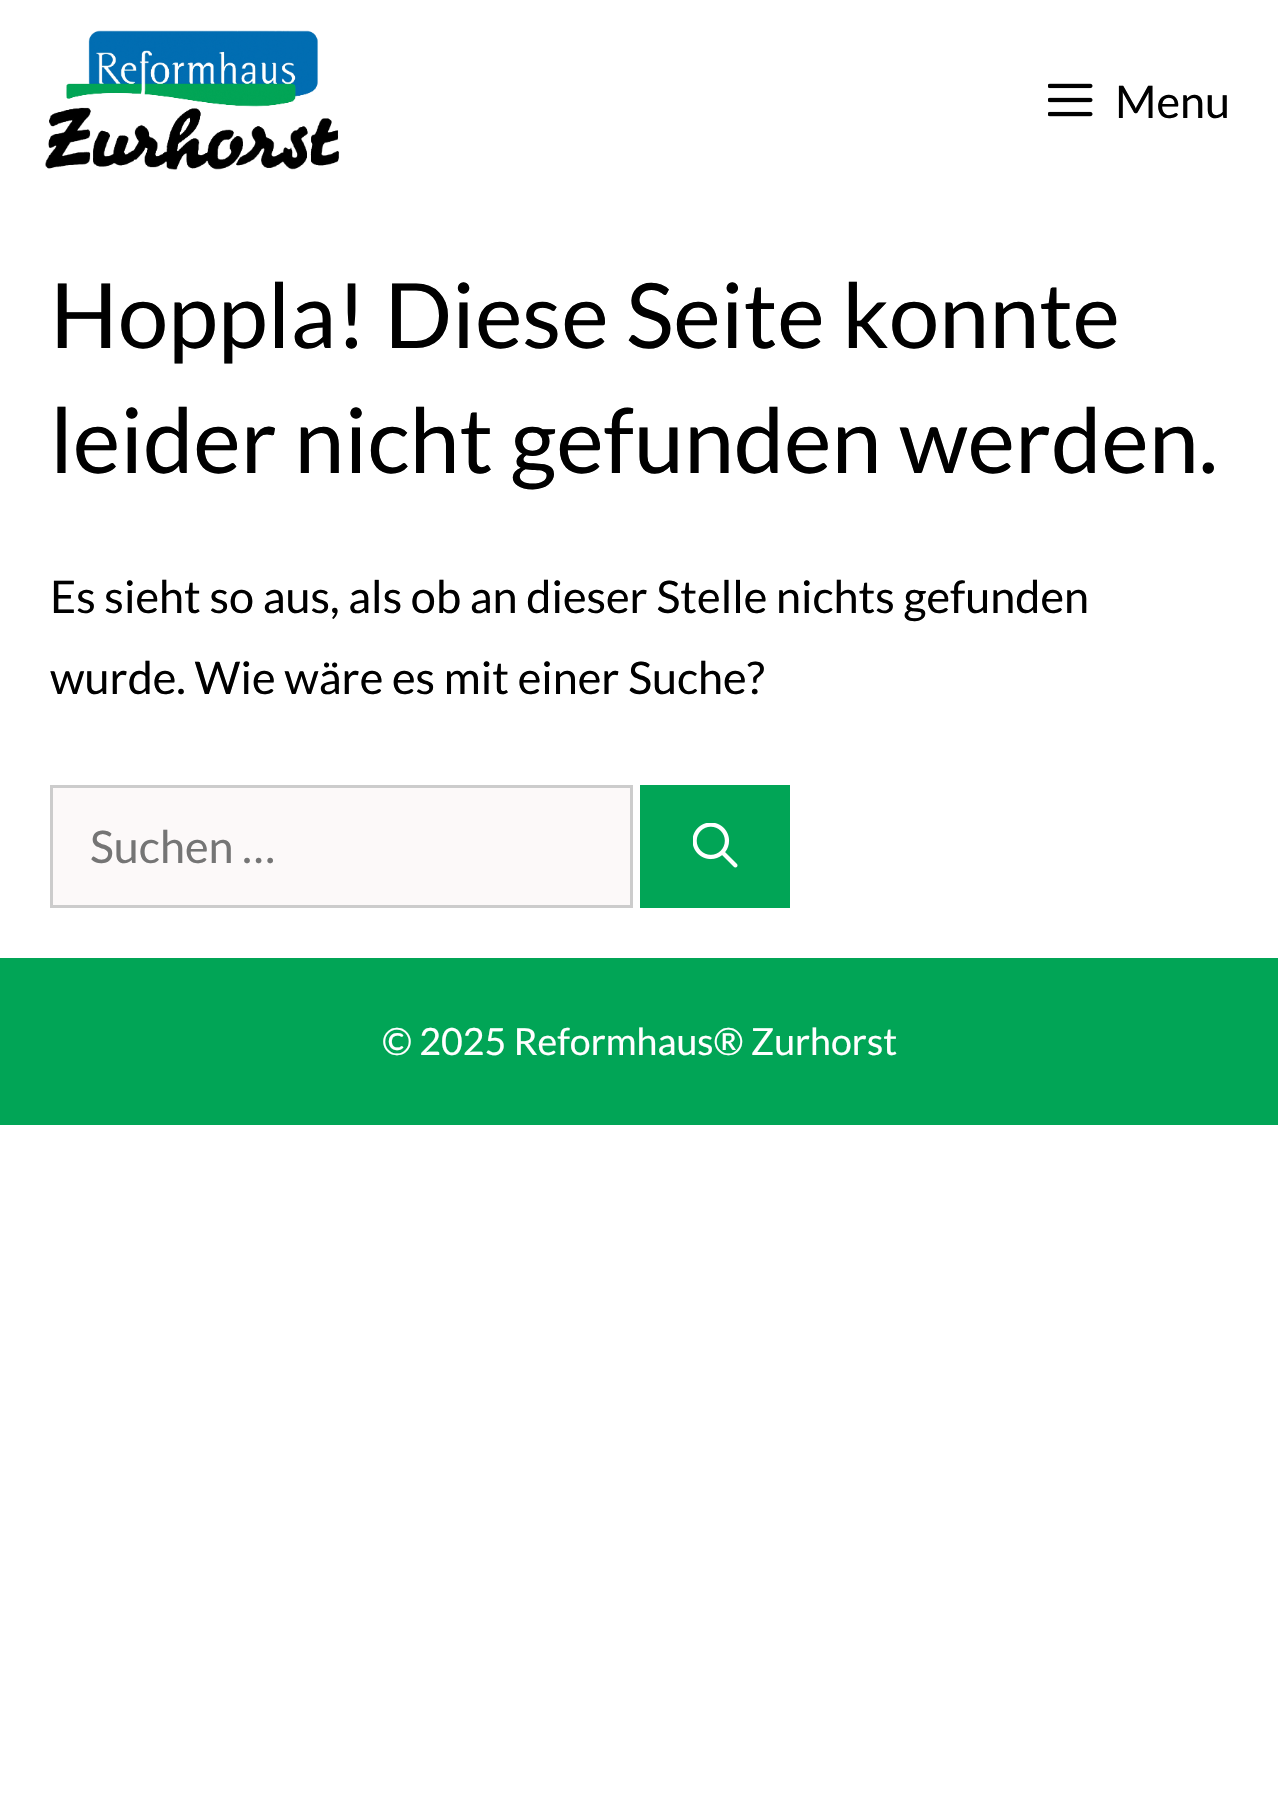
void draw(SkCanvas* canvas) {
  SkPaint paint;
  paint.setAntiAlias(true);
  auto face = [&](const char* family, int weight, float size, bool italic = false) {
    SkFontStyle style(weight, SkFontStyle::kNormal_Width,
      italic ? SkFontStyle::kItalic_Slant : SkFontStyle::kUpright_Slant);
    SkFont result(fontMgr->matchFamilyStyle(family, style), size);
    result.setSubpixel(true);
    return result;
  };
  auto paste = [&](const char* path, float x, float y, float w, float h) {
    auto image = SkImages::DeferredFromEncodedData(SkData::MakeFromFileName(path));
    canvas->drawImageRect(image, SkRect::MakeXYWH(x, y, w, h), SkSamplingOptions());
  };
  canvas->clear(0xffffffff);
  paste("img/1.png", 45, 30, 295, 140);
  paste("img/2.png", 1048, 83, 45, 34);
  paint.setColor(0xfffcf9f9);
  canvas->drawRect(SkRect::MakeXYWH(51.5f, 786.5f, 580, 120), paint);
  paint.setStroke(true);
  paint.setStrokeWidth(3);
  paint.setColor(0xffcccccc);
  canvas->drawRect(SkRect::MakeXYWH(51.5f, 786.5f, 580, 120), paint);
  paint.setStroke(false);
  paint.setColor(0xff01a556);
  canvas->drawRect(SkRect::MakeXYWH(640, 785, 150, 123), paint);
  paste("img/3.png", 693, 823, 45, 45);
  canvas->drawRect(SkRect::MakeXYWH(0, 958, 1278, 167), paint);
  auto f0 = face("Lato", 400, 45);
  paint.setColor(0xff000000);
  canvas->drawString("Menu", 1115, 118, f0, paint);
  auto f1 = face("Lato", 400, 90);
  canvas->drawString("Hoppla! Diese Seite konnte", 50, 348, f1, paint);
  canvas->drawString("leider nicht gefunden werden.", 50, 473, f1, paint);
  canvas->drawString("Es sieht so aus, als ob an dieser Stelle nichts gefunden", 50, 613, f0, paint);
  canvas->drawString("wurde. Wie wäre es mit einer Suche?", 50, 694, f0, paint);
  paint.setColor(0xff757575);
  canvas->drawString("Suchen …", 90, 863, f0, paint);
  auto f2 = face("Lato", 400, 37.5f);
  paint.setColor(0xffffffff);
  canvas->drawString("© 2025 Reformhaus® Zurhorst", 382, 1055, f2, paint);
}
